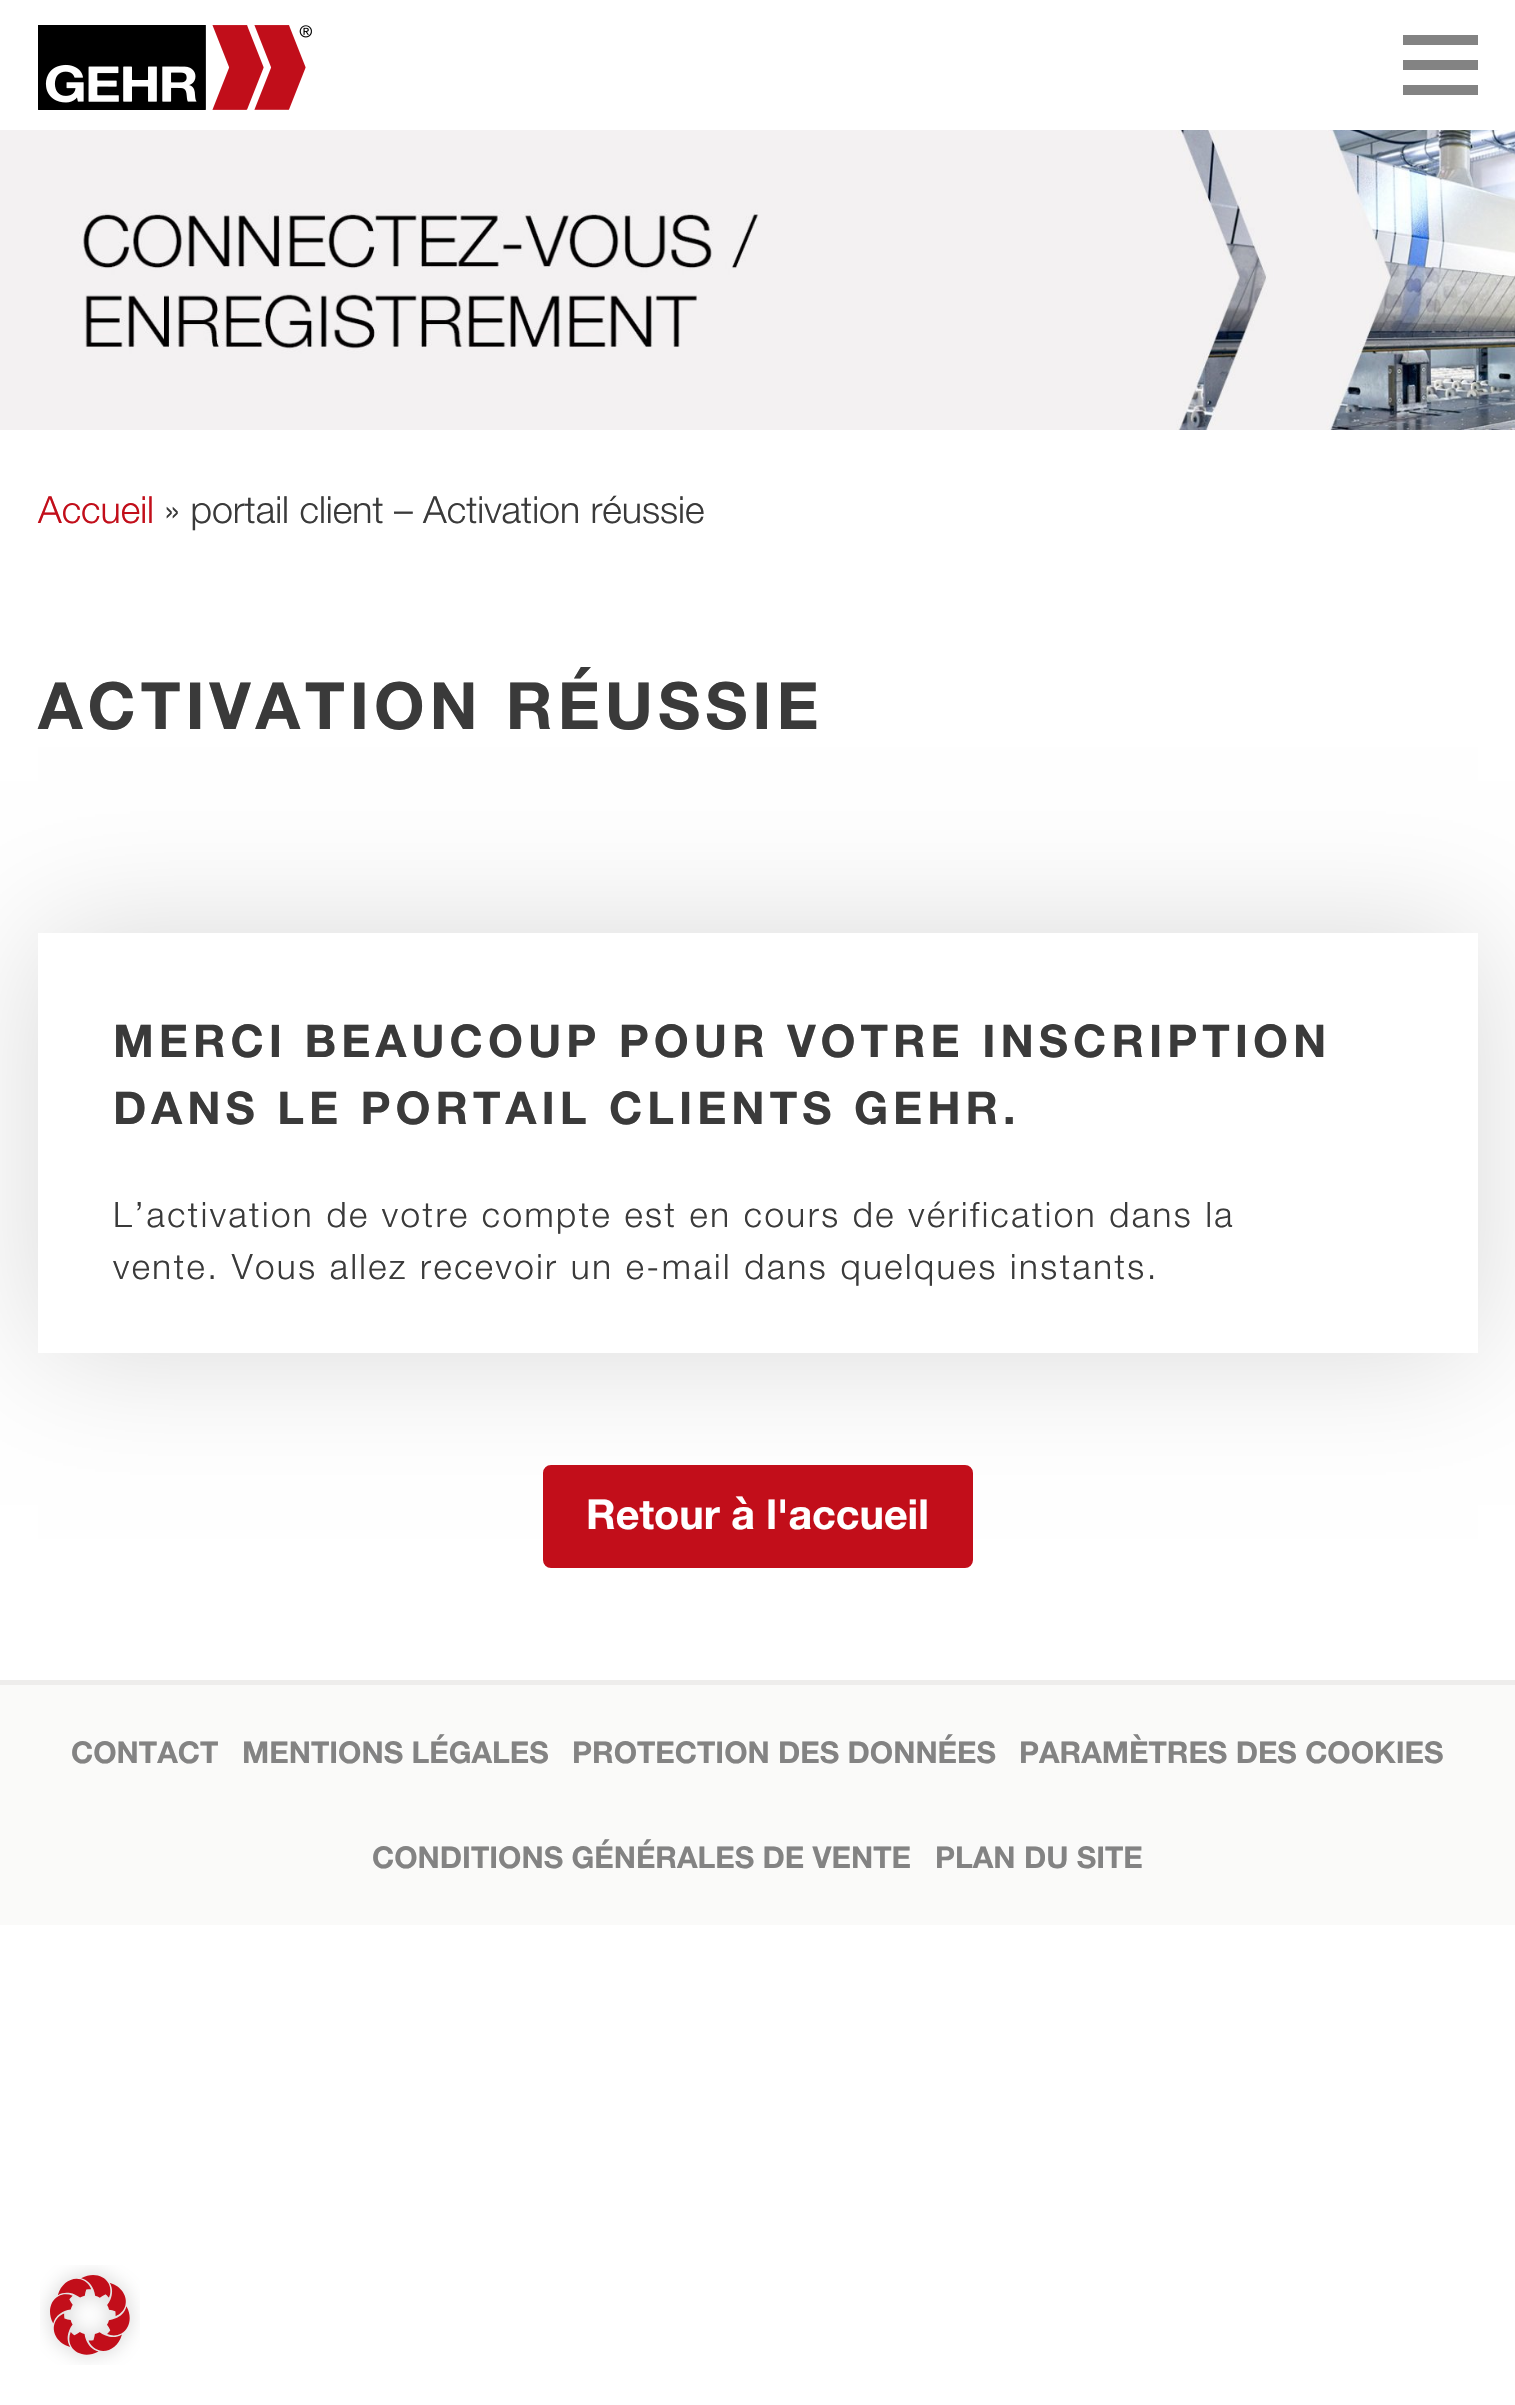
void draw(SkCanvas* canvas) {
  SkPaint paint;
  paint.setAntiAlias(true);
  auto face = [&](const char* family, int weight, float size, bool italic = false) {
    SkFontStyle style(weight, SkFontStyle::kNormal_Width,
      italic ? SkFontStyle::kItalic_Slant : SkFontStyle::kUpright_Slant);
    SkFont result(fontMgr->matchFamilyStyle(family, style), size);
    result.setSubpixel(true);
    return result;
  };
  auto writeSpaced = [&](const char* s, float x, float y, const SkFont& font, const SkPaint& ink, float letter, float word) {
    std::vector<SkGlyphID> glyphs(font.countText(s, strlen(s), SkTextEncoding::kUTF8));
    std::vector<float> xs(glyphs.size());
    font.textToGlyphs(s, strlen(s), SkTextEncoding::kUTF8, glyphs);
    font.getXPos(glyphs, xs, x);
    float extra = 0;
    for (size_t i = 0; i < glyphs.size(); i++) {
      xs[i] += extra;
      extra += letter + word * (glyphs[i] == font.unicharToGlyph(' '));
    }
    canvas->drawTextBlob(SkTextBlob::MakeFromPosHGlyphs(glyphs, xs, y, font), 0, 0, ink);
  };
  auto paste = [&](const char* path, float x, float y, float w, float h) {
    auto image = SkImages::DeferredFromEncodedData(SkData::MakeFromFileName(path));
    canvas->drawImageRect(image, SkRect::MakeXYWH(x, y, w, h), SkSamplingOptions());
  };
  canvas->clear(0xffffffff);
  paste("img/1.png", 38, 25, 274, 85);
  {
    const struct { float x, y, w, h; SkColor color; } items[] = {
      {1403, 60, 75, 10, 0xff838383},
      {1403, 35, 75, 10, 0xff838383},
      {1403, 85, 75, 10, 0xff838383},
    };
    for (auto [x, y, w, h, color] : items) {
      paint.setColor(color);
      canvas->drawRect(SkRect::MakeXYWH(x, y, w, h), paint);
    }
  }
  paste("img/2.png", 0, 130, 1515, 300);
  paint.setColor(0x26000000);
  paint.setMaskFilter(SkMaskFilter::MakeBlur(kNormal_SkBlurStyle, 62.5f));
  canvas->drawRect(SkRect::MakeXYWH(38, 933, 1440, 420), paint);
  paint.setMaskFilter(nullptr);
  paint.setColor(0xffffffff);
  canvas->drawRect(SkRect::MakeXYWH(38, 933, 1440, 420), paint);
  paint.setColor(0xffc20e1a);
  canvas->drawRoundRect(SkRect::MakeXYWH(544.5f, 1466.5f, 427, 100), 6.5f, 6.5f, paint);
  paint.setStroke(true);
  paint.setStrokeWidth(3);
  canvas->drawRoundRect(SkRect::MakeXYWH(544.5f, 1466.5f, 427, 100), 6.5f, 6.5f, paint);
  paint.setStroke(false);
  paint.setColor(0xfffafaf9);
  canvas->drawRect(SkRect::MakeXYWH(0, 1685, 1515, 240), paint);
  paint.setColor(0xffeeedec);
  canvas->drawRect(SkRect::MakeXYWH(0, 1680, 1515, 5), paint);
  paste("img/3.png", 40, 2265, 100, 100);
  auto f0 = face("Helvetica Neue", 300, 37.5f);
  paint.setColor(0xffc20e1a);
  canvas->drawString("Accueil", 38, 523, f0, paint);
  paint.setColor(0xff3a3a3a);
  canvas->drawString("» portail client – Activation réussie", 164, 523, f0, paint);
  auto f1 = face("Helvetica Neue", 700, 65);
  writeSpaced("ACTIVATION RÉUSSIE", 38, 729, f1, paint, 5, 0);
  auto f2 = face("Helvetica Neue", 700, 45);
  writeSpaced("MERCI BEAUCOUP POUR VOTRE INSCRIPTION", 113, 1057, f2, paint, 5, 0);
  writeSpaced("DANS LE PORTAIL CLIENTS GEHR.", 113, 1124, f2, paint, 5, 0);
  auto f3 = face("Helvetica Neue", 300, 35);
  writeSpaced("L’activation de votre compte est en cours de vérification dans la", 113, 1227, f3, paint, 2.5f, 0);
  writeSpaced("vente. Vous allez recevoir un e-mail dans quelques instants.", 113, 1279, f3, paint, 2.5f, 0);
  auto f4 = face("Helvetica Neue", 700, 41.25f);
  paint.setColor(0xffffffff);
  canvas->drawString("Retour à l'accueil", 586, 1529, f4, paint);
  auto f5 = face("Helvetica Neue", 700, 30);
  paint.setColor(0xff838383);
  {
    const struct { const char* s; float x, y; } items[] = {
      {"CONTACT", 71, 1763},
      {"MENTIONS LÉGALES", 242, 1763},
      {"PROTECTION DES DONNÉES", 572, 1763},
      {"PARAMÈTRES DES COOKIES", 1019, 1763},
      {"CONDITIONS GÉNÉRALES DE VENTE", 372, 1868},
      {"PLAN DU SITE", 935, 1868},
    };
    for (auto [s, x, y] : items) {
      canvas->drawString(s, x, y, f5, paint);
    }
  }
}
